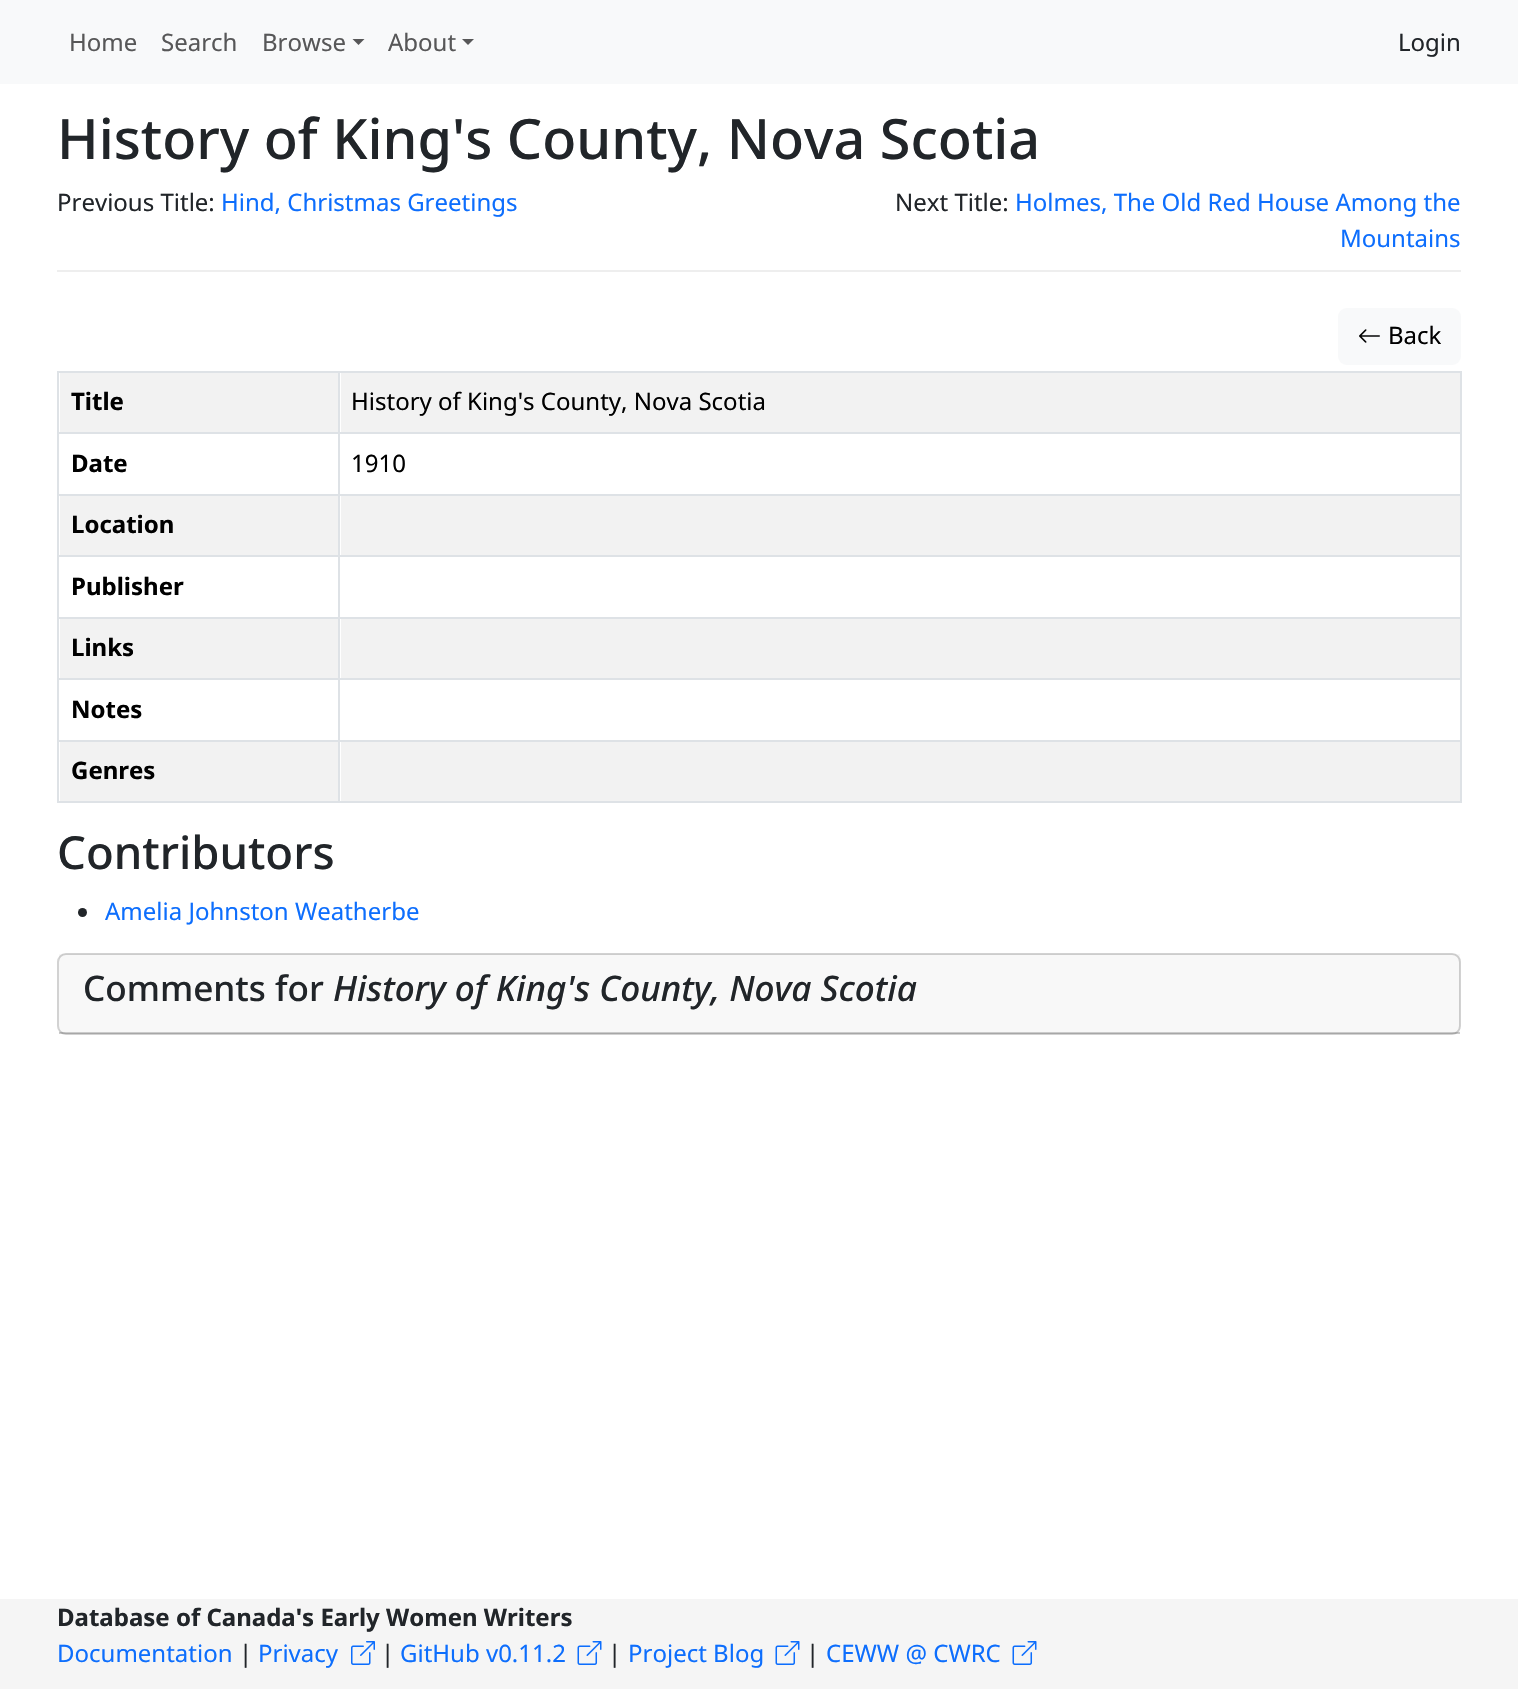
void draw(SkCanvas* canvas) {
  SkPaint paint;
  paint.setAntiAlias(true);
  auto face = [&](const char* family, int weight, float size, bool italic = false) {
    SkFontStyle style(weight, SkFontStyle::kNormal_Width,
      italic ? SkFontStyle::kItalic_Slant : SkFontStyle::kUpright_Slant);
    SkFont result(fontMgr->matchFamilyStyle(family, style), size);
    result.setSubpixel(true);
    return result;
  };
  auto paste = [&](const char* path, float x, float y, float w, float h) {
    auto image = SkImages::DeferredFromEncodedData(SkData::MakeFromFileName(path));
    canvas->drawImageRect(image, SkRect::MakeXYWH(x, y, w, h), SkSamplingOptions());
  };
  auto shape = [&](const char* data, bool evenOdd = false) {
    SkPath result = *SkParsePath::FromSVGString(data);
    if (evenOdd) result.setFillType(SkPathFillType::kEvenOdd);
    return result;
  };
  canvas->clear(0xffffffff);
  paint.setColor(0xfff8f9fa);
  canvas->drawRect(SkRect::MakeXYWH(0, 0, 1518, 84), paint);
  paint.setColor(0xff575758);
  canvas->drawPath(shape("M352.5 39H364.5L358.5 45Z"), paint);
  canvas->drawPath(shape("M462 39H474L468 45Z"), paint);
  paint.setColor(0xffeeeeee);
  canvas->drawRect(SkRect::MakeXYWH(57, 270, 1404, 2), paint);
  paint.setColor(0xfff8f9fa);
  canvas->drawRoundRect(SkRect::MakeXYWH(1338, 308, 123, 57), 9, 9, paint);
  paste("img/1.png", 1359, 329, 21, 14);
  {
    const struct { float x, y, w, h; SkColor color; } items[] = {
      {57, 371, 1404, 2, 0xffdee2e6},
      {60, 373, 278, 59, 0xfff2f2f2},
      {341, 373, 1119, 59, 0xfff2f2f2},
      {57, 432, 1404, 2, 0xffdee2e6},
      {57, 494, 1404, 2, 0xffdee2e6},
      {60, 496, 278, 59, 0xfff2f2f2},
      {341, 496, 1119, 59, 0xfff2f2f2},
      {57, 555, 1404, 2, 0xffdee2e6},
      {57, 617, 1404, 2, 0xffdee2e6},
      {60, 619, 278, 59, 0xfff2f2f2},
      {341, 619, 1119, 59, 0xfff2f2f2},
      {57, 678, 1404, 2, 0xffdee2e6},
      {57, 740, 1404, 2, 0xffdee2e6},
      {57, 801, 1404, 2, 0xffdee2e6},
      {60, 742, 278, 59, 0xfff2f2f2},
      {57, 371, 2, 432, 0xffdee2e6},
      {341, 742, 1119, 59, 0xfff2f2f2},
      {1460, 371, 2, 432, 0xffdee2e6},
      {338, 371, 2, 432, 0xffdee2e6},
    };
    for (auto [x, y, w, h, color] : items) {
      paint.setColor(color);
      canvas->drawRect(SkRect::MakeXYWH(x, y, w, h), paint);
    }
  }
  paint.setColor(0xff212529);
  canvas->drawCircle(82.5f, 912.5f, 4.5f, paint);
  paint.setStroke(true);
  paint.setStrokeWidth(2);
  paint.setColor(0xffd2d2d2);
  canvas->drawRoundRect(SkRect::MakeXYWH(58, 954, 1402, 80), 8, 8, paint);
  paint.setStroke(false);
  {
    const struct { float x, y, w, h; SkColor color; } items[] = {
      {59, 954, 1401, 80, 0x08212529},
      {59, 1032, 1401, 2, 0x2e000000},
      {0, 1599, 1518, 90, 0xfff5f5f5},
    };
    for (auto [x, y, w, h, color] : items) {
      paint.setColor(color);
      canvas->drawRect(SkRect::MakeXYWH(x, y, w, h), paint);
    }
  }
  paste("img/2.png", 351, 1641, 24, 24);
  paste("img/3.png", 577, 1641, 25, 24);
  paste("img/3.png", 775, 1641, 25, 24);
  paste("img/3.png", 1012, 1641, 25, 24);
  auto f0 = face("Noto Sans", 400, 24);
  paint.setColor(0xff575758);
  {
    const struct { const char* s; float x, y; } items[] = {
      {"Home", 69, 51},
      {"Search", 161, 51},
      {"Browse", 262, 51},
      {"About", 388, 51},
    };
    for (auto [s, x, y] : items) {
      canvas->drawString(s, x, y, f0, paint);
    }
  }
  paint.setColor(0xff212529);
  canvas->drawString("Login", 1398, 51, f0, paint);
  auto f1 = face("Noto Sans", 500, 55.75f);
  canvas->drawString("History of King's County, Nova Scotia", 57, 159, f1, paint);
  canvas->drawString("Previous Title:", 57, 211, f0, paint);
  paint.setColor(0xff0d6efd);
  canvas->drawString("Hind, Christmas Greetings", 221, 211, f0, paint);
  paint.setColor(0xff212529);
  canvas->drawString("Next Title:", 895, 211, f0, paint);
  paint.setColor(0xff0d6efd);
  canvas->drawString("Holmes, The Old Red House Among the", 1015, 211, f0, paint);
  canvas->drawString("Mountains", 1340, 247, f0, paint);
  paint.setColor(0xff000000);
  canvas->drawString("Back", 1388, 344, f0, paint);
  auto f2 = face("Noto Sans", 700, 24);
  canvas->drawString("Title", 71, 410, f2, paint);
  canvas->drawString("History of King's County, Nova Scotia", 351, 410, f0, paint);
  canvas->drawString("Date", 71, 472, f2, paint);
  canvas->drawString("1910", 351, 472, f0, paint);
  {
    const struct { const char* s; float x, y; } items[] = {
      {"Location", 71, 533},
      {"Publisher", 71, 595},
      {"Links", 71, 656},
      {"Notes", 71, 718},
      {"Genres", 71, 779},
    };
    for (auto [s, x, y] : items) {
      canvas->drawString(s, x, y, f2, paint);
    }
  }
  auto f3 = face("Noto Sans", 500, 45.5f);
  paint.setColor(0xff212529);
  canvas->drawString("Contributors", 57, 869, f3, paint);
  paint.setColor(0xff0d6efd);
  canvas->drawString("Amelia Johnston Weatherbe", 105, 920, f0, paint);
  auto f4 = face("Noto Sans", 500, 35.1f);
  paint.setColor(0xff212529);
  canvas->drawString("Comments for", 83, 1001, f4, paint);
  auto f5 = face("Noto Sans", 500, 35.1f, true);
  canvas->drawString("History of King's County, Nova Scotia", 333, 1001, f5, paint);
  canvas->drawString("Database of Canada's Early Women Writers", 57, 1626, f2, paint);
  paint.setColor(0xff0d6efd);
  canvas->drawString("Documentation", 57, 1662, f0, paint);
  paint.setColor(0xff212529);
  canvas->drawString("|", 239, 1662, f0, paint);
  paint.setColor(0xff0d6efd);
  canvas->drawString("Privacy", 258, 1662, f0, paint);
  paint.setColor(0xff212529);
  canvas->drawString("|", 381, 1662, f0, paint);
  paint.setColor(0xff0d6efd);
  canvas->drawString("GitHub v0.11.2", 400, 1662, f0, paint);
  paint.setColor(0xff212529);
  canvas->drawString("|", 608, 1662, f0, paint);
  paint.setColor(0xff0d6efd);
  canvas->drawString("Project Blog", 628, 1662, f0, paint);
  paint.setColor(0xff212529);
  canvas->drawString("|", 806, 1662, f0, paint);
  paint.setColor(0xff0d6efd);
  canvas->drawString("CEWW @ CWRC", 826, 1662, f0, paint);
}
